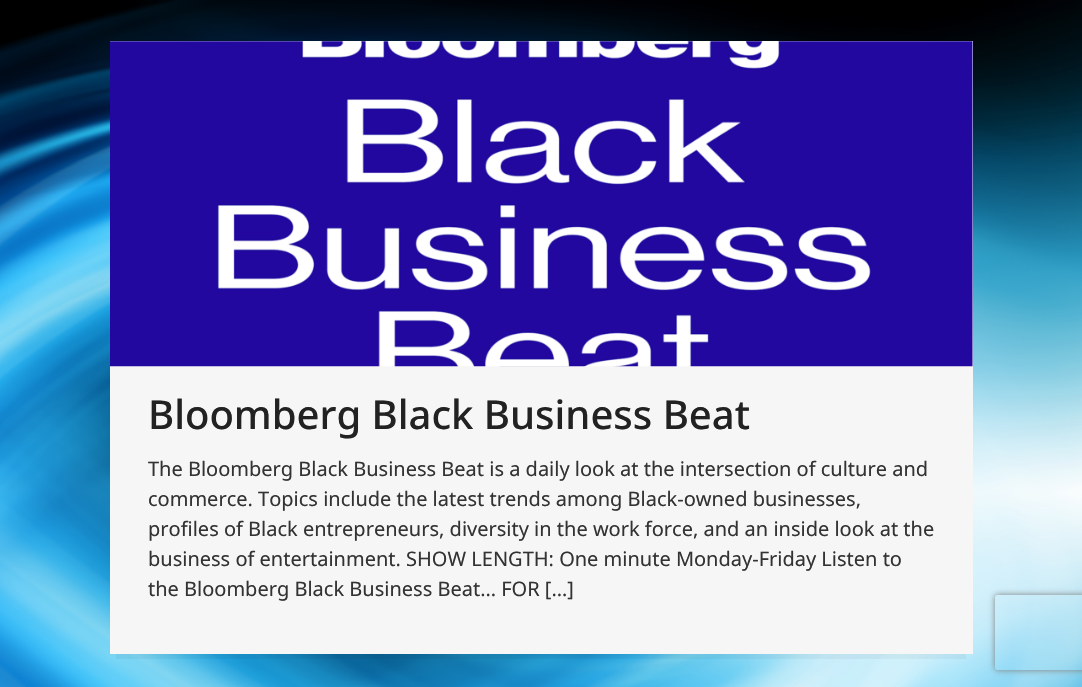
void draw(SkCanvas* canvas) {
  SkPaint paint;
  paint.setAntiAlias(true);
  auto face = [&](const char* family, int weight, float size, bool italic = false) {
    SkFontStyle style(weight, SkFontStyle::kNormal_Width,
      italic ? SkFontStyle::kItalic_Slant : SkFontStyle::kUpright_Slant);
    SkFont result(fontMgr->matchFamilyStyle(family, style), size);
    result.setSubpixel(true);
    return result;
  };
  auto paste = [&](const char* path, float x, float y, float w, float h) {
    auto image = SkImages::DeferredFromEncodedData(SkData::MakeFromFileName(path));
    canvas->drawImageRect(image, SkRect::MakeXYWH(x, y, w, h), SkSamplingOptions());
  };
  auto shape = [&](const char* data, bool evenOdd = false) {
    SkPath result = *SkParsePath::FromSVGString(data);
    if (evenOdd) result.setFillType(SkPathFillType::kEvenOdd);
    return result;
  };
  canvas->clear(0xffffffff);
  paste("img/1.png", 0, 0, 1082, 687);
  paint.setColor(0x0a000000);
  canvas->drawRect(SkRect::MakeXYWH(116, 654, 850, 5), paint);
  paint.setColor(0xfff6f6f6);
  canvas->drawRect(SkRect::MakeXYWH(110, 41, 863, 613), paint);
  paste("img/2.png", 110, 41, 863, 326);
  canvas->save();
  canvas->clipPath(shape("M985 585H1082V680H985ZM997.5 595H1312.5C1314 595 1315 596 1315 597.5V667.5C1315 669 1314 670 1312.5 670H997.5C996 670 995 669 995 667.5V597.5C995 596 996 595 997.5 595Z", true), true);
  paint.setColor(0xff808080);
  paint.setMaskFilter(SkMaskFilter::MakeBlur(kNormal_SkBlurStyle, 3));
  canvas->drawRoundRect(SkRect::MakeXYWH(995, 595, 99, 75), 2.5f, 2.5f, paint);
  paint.setMaskFilter(nullptr);
  canvas->restore();
  auto f0 = face("Noto Sans", 500, 40);
  paint.setColor(0xff222222);
  canvas->drawString("Bloomberg Black Business Beat", 148, 429, f0, paint);
  auto f1 = face("Noto Sans", 400, 20);
  paint.setColor(0xff333333);
  {
    const struct { const char* s; float x, y; } items[] = {
      {"The Bloomberg Black Business Beat is a daily look at the intersection of culture and", 148, 476},
      {"commerce. Topics include the latest trends among Black-owned businesses,", 148, 506},
      {"profiles of Black entrepreneurs, diversity in the work force, and an inside look at the", 148, 536},
      {"business of entertainment. SHOW LENGTH: One minute Monday-Friday Listen to", 148, 566},
      {"the Bloomberg Black Business Beat… FOR […]", 148, 596},
    };
    for (auto [s, x, y] : items) {
      canvas->drawString(s, x, y, f1, paint);
    }
  }
}
